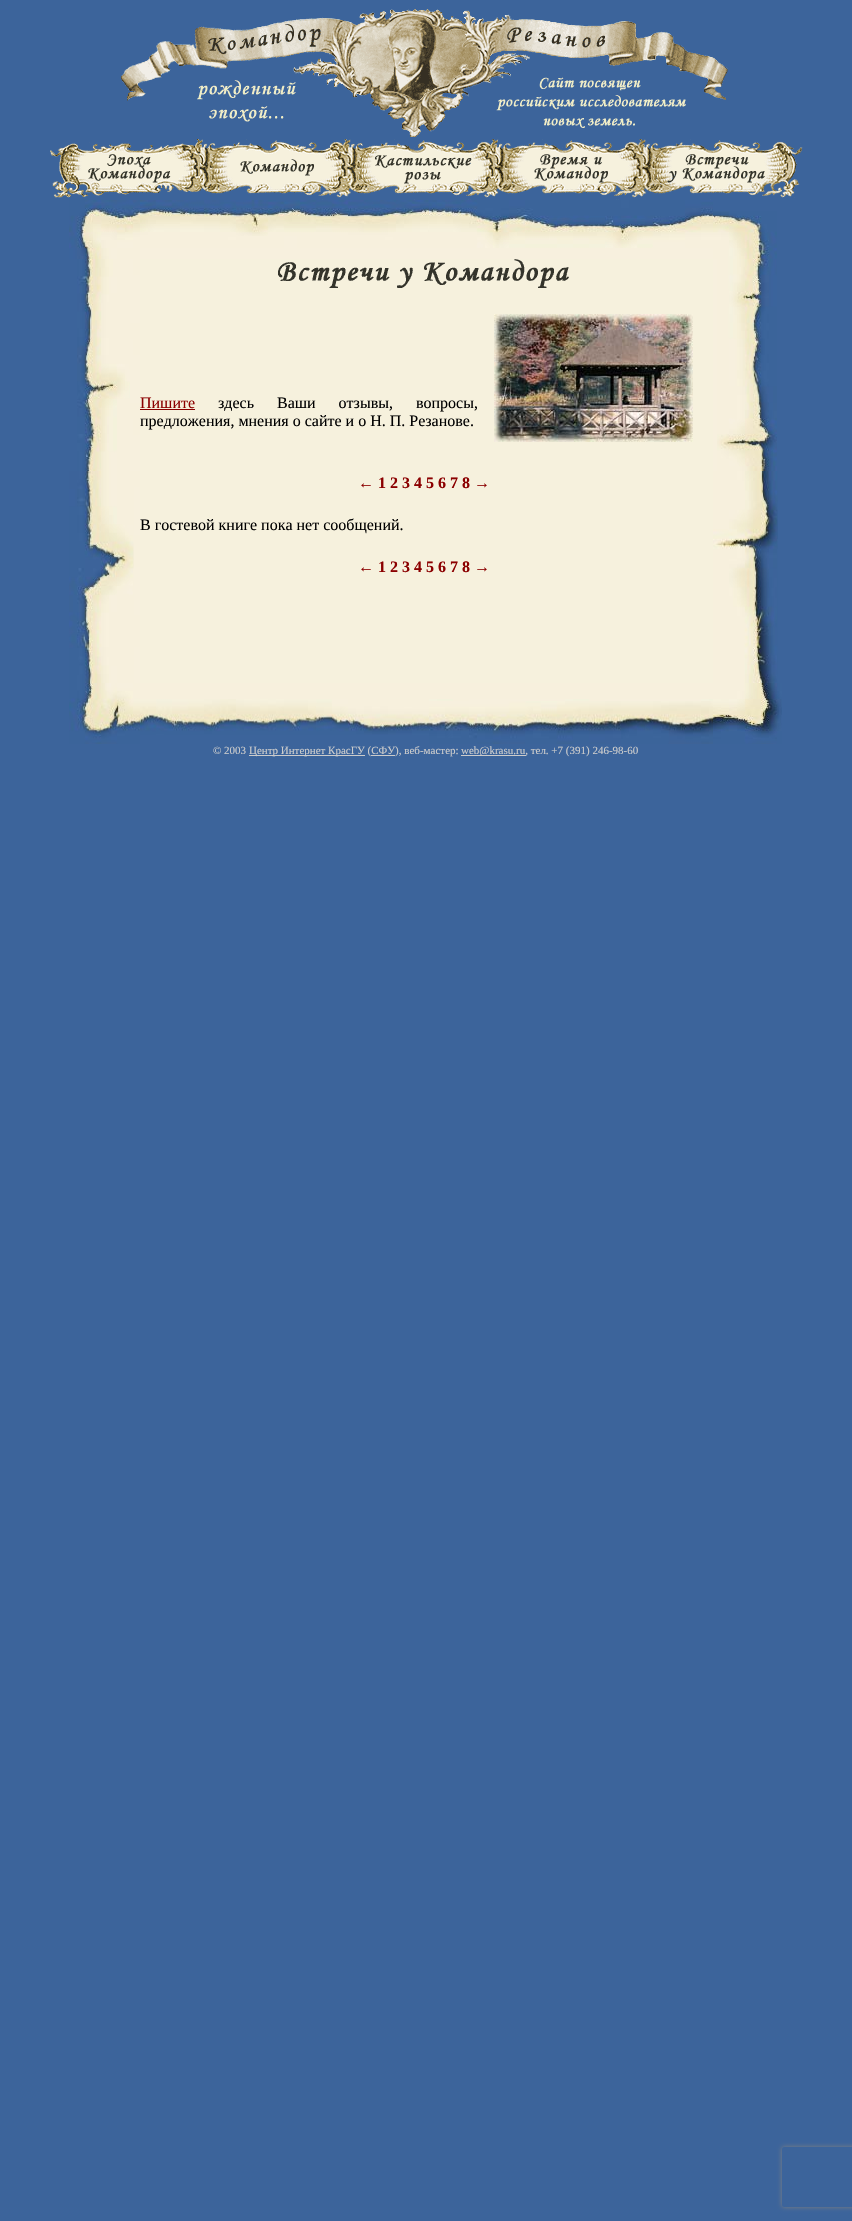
void draw(SkCanvas* canvas) {
  SkPaint paint;
  paint.setAntiAlias(true);
  auto face = [&](const char* family, int weight, float size, bool italic = false) {
    SkFontStyle style(weight, SkFontStyle::kNormal_Width,
      italic ? SkFontStyle::kItalic_Slant : SkFontStyle::kUpright_Slant);
    SkFont result(fontMgr->matchFamilyStyle(family, style), size);
    result.setSubpixel(true);
    return result;
  };
  auto writeSpaced = [&](const char* s, float x, float y, const SkFont& font, const SkPaint& ink, float letter, float word) {
    std::vector<SkGlyphID> glyphs(font.countText(s, strlen(s), SkTextEncoding::kUTF8));
    std::vector<float> xs(glyphs.size());
    font.textToGlyphs(s, strlen(s), SkTextEncoding::kUTF8, glyphs);
    font.getXPos(glyphs, xs, x);
    float extra = 0;
    for (size_t i = 0; i < glyphs.size(); i++) {
      xs[i] += extra;
      extra += letter + word * (glyphs[i] == font.unicharToGlyph(' '));
    }
    canvas->drawTextBlob(SkTextBlob::MakeFromPosHGlyphs(glyphs, xs, y, font), 0, 0, ink);
  };
  auto paste = [&](const char* path, float x, float y, float w, float h) {
    auto image = SkImages::DeferredFromEncodedData(SkData::MakeFromFileName(path));
    canvas->drawImageRect(image, SkRect::MakeXYWH(x, y, w, h), SkSamplingOptions());
  };
  auto shape = [&](const char* data, bool evenOdd = false) {
    SkPath result = *SkParsePath::FromSVGString(data);
    if (evenOdd) result.setFillType(SkPathFillType::kEvenOdd);
    return result;
  };
  canvas->clear(0xff3c649b);
  paste("img/1.png", 121, 9, 607, 128);
  paste("img/2.png", 50, 139, 153, 59);
  paste("img/3.png", 203, 139, 148, 61);
  paste("img/4.png", 351, 139, 147, 61);
  paste("img/5.png", 498, 139, 148, 61);
  paste("img/6.png", 646, 139, 157, 61);
  paste("img/7.png", 69, 200, 71, 59);
  paste("img/8.png", 140, 236, 289, 23);
  paste("img/9.png", 140, 200, 289, 36);
  paste("img/10.png", 429, 248, 284, 11);
  paste("img/11.png", 429, 200, 284, 48);
  paste("img/12.png", 713, 211, 64, 48);
  paste("img/13.png", 130, 259, 10, 212);
  paste("img/14.png", 77, 259, 53, 212);
  paint.setColor(0xfff6f1dd);
  canvas->drawRect(SkRect::MakeXYWH(140, 259, 573, 424), paint);
  paste("img/15.png", 278, 259, 291, 29);
  paint.setColor(0xff8b0000);
  canvas->drawRect(SkRect::MakeXYWH(140, 409, 55, 1), paint);
  paste("img/16.png", 494, 314, 199, 128);
  paste("img/17.png", 713, 259, 4, 212);
  paste("img/18.png", 717, 259, 60, 212);
  paste("img/19.png", 134, 471, 6, 212);
  paste("img/20.png", 69, 471, 65, 212);
  paste("img/21.png", 713, 471, 65, 212);
  paste("img/22.png", 69, 683, 71, 61);
  paste("img/23.png", 140, 683, 289, 16);
  paste("img/24.png", 140, 699, 289, 36);
  paste("img/25.png", 429, 683, 284, 18);
  paste("img/26.png", 429, 701, 284, 43);
  paste("img/27.png", 713, 683, 69, 61);
  {
    const struct { float x, y, w, h; SkColor color; } items[] = {
      {249, 755, 116, 1, 0xffcccccc},
      {461, 755, 65, 1, 0xffcccccc},
      {371, 755, 24, 1, 0xffcccccc},
    };
    for (auto [x, y, w, h, color] : items) {
      paint.setColor(color);
      canvas->drawRect(SkRect::MakeXYWH(x, y, w, h), paint);
    }
  }
  canvas->save();
  canvas->clipPath(shape("M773 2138H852V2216H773ZM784 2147H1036C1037 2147 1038 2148 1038 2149V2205C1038 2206 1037 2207 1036 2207H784C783 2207 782 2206 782 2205V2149C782 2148 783 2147 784 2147Z", true), true);
  paint.setColor(0xff808080);
  paint.setMaskFilter(SkMaskFilter::MakeBlur(kNormal_SkBlurStyle, 2.5f));
  canvas->drawRoundRect(SkRect::MakeXYWH(782, 2147, 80, 60), 2, 2, paint);
  paint.setMaskFilter(nullptr);
  canvas->restore();
  auto f0 = face("Liberation Serif", 400, 16);
  paint.setColor(0xff8b0000);
  canvas->drawString("Пишите", 140, 408, f0, paint);
  paint.setColor(0xff000000);
  writeSpaced("здесь Ваши отзывы, вопросы,", 218, 408, f0, paint, 0, 19);
  canvas->drawString("предложения, мнения о сайте и о Н. П. Резанове.", 140, 426, f0, paint);
  auto f1 = face("Liberation Serif", 700, 16);
  paint.setColor(0xff8b0000);
  canvas->drawString("← 1 2 3 4 5 6 7 8 →", 358, 488, f1, paint);
  paint.setColor(0xff000000);
  canvas->drawString("В гостевой книге пока нет сообщений.", 140, 530, f0, paint);
  paint.setColor(0xff8b0000);
  canvas->drawString("← 1 2 3 4 5 6 7 8 →", 358, 572, f1, paint);
  auto f2 = face("Liberation Serif", 400, 11);
  paint.setColor(0xffcccccc);
  {
    const struct { const char* s; float x, y; } items[] = {
      {"© 2003", 213, 754},
      {"Центр Интернет КрасГУ (СФУ), веб-мастер:", 249, 754},
      {"web@krasu.ru, тел. +7 (391) 246-98-60", 461, 754},
    };
    for (auto [s, x, y] : items) {
      canvas->drawString(s, x, y, f2, paint);
    }
  }
}
